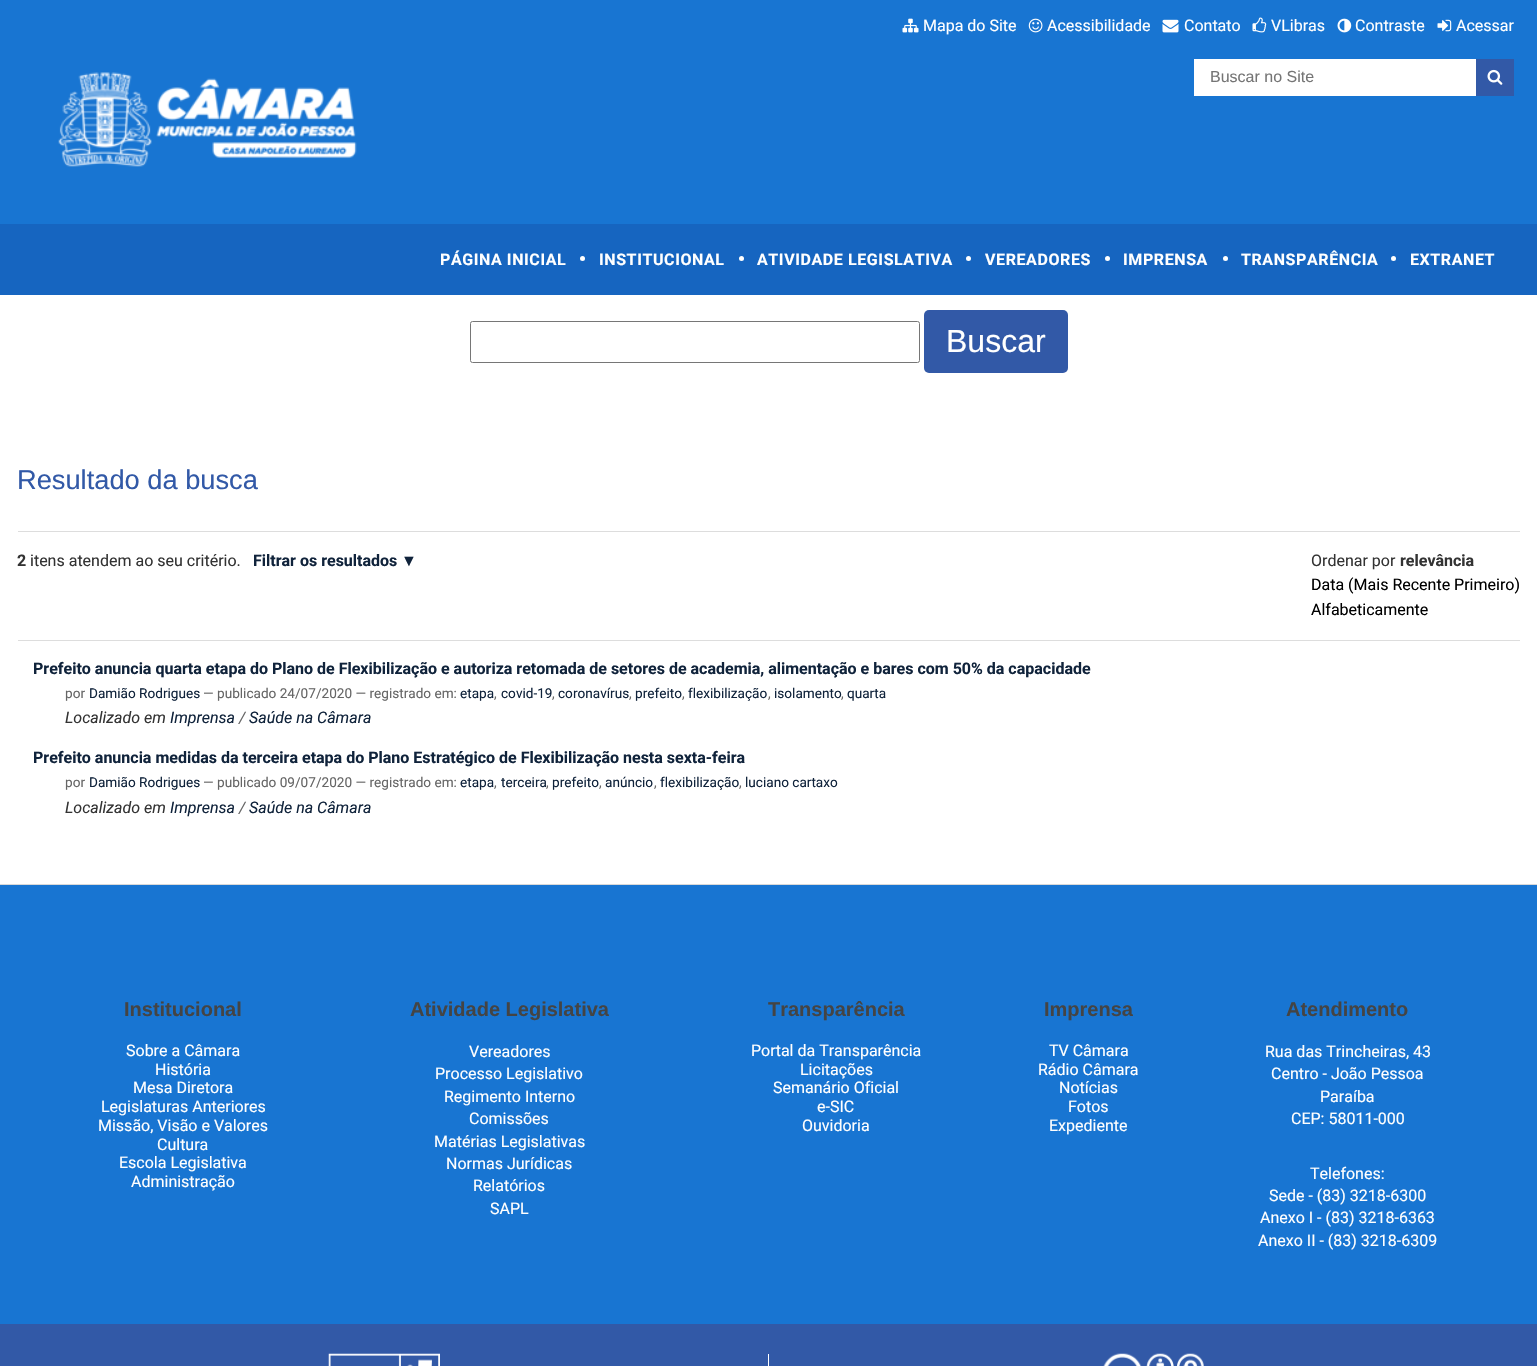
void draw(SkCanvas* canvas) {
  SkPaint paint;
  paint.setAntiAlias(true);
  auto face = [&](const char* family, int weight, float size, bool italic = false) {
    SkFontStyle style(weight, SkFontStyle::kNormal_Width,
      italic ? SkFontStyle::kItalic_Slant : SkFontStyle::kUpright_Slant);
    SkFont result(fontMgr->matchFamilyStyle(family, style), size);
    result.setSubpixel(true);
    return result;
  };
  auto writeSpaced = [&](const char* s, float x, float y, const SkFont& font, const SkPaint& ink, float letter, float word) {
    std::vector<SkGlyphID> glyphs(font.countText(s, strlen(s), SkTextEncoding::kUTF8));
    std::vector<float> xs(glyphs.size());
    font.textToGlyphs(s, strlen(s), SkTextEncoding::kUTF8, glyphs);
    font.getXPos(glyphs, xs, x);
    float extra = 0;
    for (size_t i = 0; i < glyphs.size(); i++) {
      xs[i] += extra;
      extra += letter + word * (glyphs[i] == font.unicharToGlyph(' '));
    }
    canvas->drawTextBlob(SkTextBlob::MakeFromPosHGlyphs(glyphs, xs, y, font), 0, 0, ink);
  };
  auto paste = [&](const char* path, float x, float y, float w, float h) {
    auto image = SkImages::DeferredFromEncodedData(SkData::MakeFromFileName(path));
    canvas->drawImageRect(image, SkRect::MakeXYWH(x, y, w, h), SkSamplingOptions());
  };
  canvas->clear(0xffffffff);
  paint.setColor(0xff1875d2);
  canvas->drawRect(SkRect::MakeXYWH(0, 0, 1537, 224), paint);
  paste("img/1.png", 902, 18, 17, 15);
  paste("img/2.png", 1028, 18, 15, 15);
  paste("img/3.png", 1162, 19, 17, 14);
  paste("img/4.png", 1252, 17, 15, 16);
  paste("img/5.png", 1337, 18, 15, 15);
  paste("img/6.png", 1437, 19, 15, 13);
  paste("img/7.png", 58, 72, 299, 95);
  paint.setColor(0xffffffff);
  canvas->drawRect(SkRect::MakeXYWH(1194, 59, 282, 37), paint);
  paint.setColor(0xff3259a7);
  canvas->drawRect(SkRect::MakeXYWH(1476, 59, 38, 37), paint);
  paste("img/8.png", 1487, 69, 16, 16);
  paint.setColor(0xff1665c0);
  canvas->drawRect(SkRect::MakeXYWH(0, 224, 1537, 71), paint);
  paint.setColor(0xffffffff);
  canvas->drawCircle(582.5f, 258.5f, 2.5f, paint);
  canvas->drawCircle(741.5f, 258.5f, 2.5f, paint);
  canvas->drawCircle(968.5f, 258.5f, 2.5f, paint);
  canvas->drawCircle(1107.5f, 258.5f, 2.5f, paint);
  canvas->drawCircle(1225.5f, 258.5f, 2.5f, paint);
  canvas->drawCircle(1393.5f, 258.5f, 2.5f, paint);
  paint.setStroke(true);
  paint.setStrokeWidth(1);
  paint.setColor(0xff767676);
  canvas->drawRoundRect(SkRect::MakeXYWH(470.5f, 321.5f, 449, 41), 2, 2, paint);
  paint.setStroke(false);
  paint.setColor(0xff3259a7);
  canvas->drawRoundRect(SkRect::MakeXYWH(924, 310, 144, 63), 5, 5, paint);
  {
    const struct { float x, y, w, h; SkColor color; } items[] = {
      {18, 531, 1502, 1, 0xffdddddd},
      {18, 640, 1502, 1, 0xffdddddd},
      {0, 885, 1537, 439, 0xff1875d2},
      {0, 884, 1537, 1, 0xffd8d8d8},
      {0, 1324, 1537, 42, 0xff3259a7},
    };
    for (auto [x, y, w, h, color] : items) {
      paint.setColor(color);
      canvas->drawRect(SkRect::MakeXYWH(x, y, w, h), paint);
    }
  }
  paste("img/9.png", 328, 1353, 112, 13);
  paint.setColor(0xffffffff);
  canvas->drawRect(SkRect::MakeXYWH(768, 1354, 1, 12), paint);
  paste("img/10.png", 1103, 1353, 101, 13);
  auto f0 = face("Roboto", 400, 16);
  {
    const struct { const char* s; float x, y; } items[] = {
      {"Mapa do Site", 923, 31},
      {"Acessibilidade", 1047, 31},
      {"Contato", 1184, 31},
      {"VLibras", 1271, 31},
      {"Contraste", 1355, 31},
      {"Acessar", 1456, 31},
    };
    for (auto [s, x, y] : items) {
      canvas->drawString(s, x, y, f0, paint);
    }
  }
  auto f1 = face("Liberation Sans", 400, 16);
  paint.setColor(0xff757575);
  canvas->drawString("Buscar no Site", 1210, 82, f1, paint);
  auto f2 = face("Roboto", 700, 16);
  paint.setColor(0xffffffff);
  {
    const struct { const char* s; float x, y; } items[] = {
      {"PÁGINA INICIAL", 440, 265},
      {"INSTITUCIONAL", 599, 265},
      {"ATIVIDADE LEGISLATIVA", 757, 265},
      {"VEREADORES", 985, 265},
      {"IMPRENSA", 1123, 265},
      {"TRANSPARÊNCIA", 1241, 265},
      {"EXTRANET", 1410, 265},
    };
    for (auto [s, x, y] : items) {
      writeSpaced(s, x, y, f2, paint, 0.6f, 0);
    }
  }
  auto f3 = face("Liberation Sans", 400, 32);
  canvas->drawString("Buscar", 946, 352, f3, paint);
  auto f4 = face("Liberation Sans", 400, 27.25f);
  paint.setColor(0xff3259a7);
  canvas->drawString("Resultado da busca", 17, 489, f4, paint);
  paint.setColor(0xff333333);
  canvas->drawString("2", 17, 566, f2, paint);
  canvas->drawString("itens atendem ao seu critério.", 30, 566, f0, paint);
  paint.setColor(0xff10233b);
  canvas->drawString("Filtrar os resultados", 253, 566, f2, paint);
  auto f5 = face("Liberation Sans", 700, 16);
  canvas->drawString("▼", 401, 566, f5, paint);
  paint.setColor(0xff333333);
  canvas->drawString("relevância", 1400, 566, f2, paint);
  paint.setColor(0xff000000);
  canvas->drawString("Data (Mais Recente Primeiro)", 1311, 590, f0, paint);
  canvas->drawString("Alfabeticamente", 1311, 615, f0, paint);
  paint.setColor(0xff333333);
  canvas->drawString("Ordenar por", 1311, 566, f0, paint);
  paint.setColor(0xff10233b);
  canvas->drawString("Prefeito anuncia quarta etapa do Plano de Flexibilização e autoriza retomada de setores de academia, alimentação e bares com 50% da capacidade", 33, 674, f2, paint);
  auto f6 = face("Roboto", 400, 13.6f);
  paint.setColor(0xff666666);
  canvas->drawString("por", 65, 698, f6, paint);
  paint.setColor(0xff10233b);
  canvas->drawString("Damião Rodrigues", 89, 698, f6, paint);
  paint.setColor(0xff666666);
  canvas->drawString("— publicado 24/07/2020 — registrado em:", 203, 698, f6, paint);
  paint.setColor(0xff10233b);
  canvas->drawString("etapa", 460, 698, f6, paint);
  paint.setColor(0xff666666);
  canvas->drawString(",", 494, 698, f6, paint);
  paint.setColor(0xff10233b);
  canvas->drawString("covid-19", 501, 698, f6, paint);
  paint.setColor(0xff666666);
  canvas->drawString(",", 552, 698, f6, paint);
  paint.setColor(0xff10233b);
  canvas->drawString("coronavírus", 558, 698, f6, paint);
  paint.setColor(0xff666666);
  canvas->drawString(",", 629, 698, f6, paint);
  paint.setColor(0xff10233b);
  canvas->drawString("prefeito", 635, 698, f6, paint);
  paint.setColor(0xff666666);
  canvas->drawString(",", 682, 698, f6, paint);
  paint.setColor(0xff10233b);
  canvas->drawString("flexibilização", 688, 698, f6, paint);
  paint.setColor(0xff666666);
  canvas->drawString(",", 768, 698, f6, paint);
  paint.setColor(0xff10233b);
  canvas->drawString("isolamento", 774, 698, f6, paint);
  paint.setColor(0xff666666);
  canvas->drawString(",", 841, 698, f6, paint);
  paint.setColor(0xff10233b);
  canvas->drawString("quarta", 847, 698, f6, paint);
  auto f7 = face("Roboto", 400, 16, true);
  paint.setColor(0xff333333);
  canvas->drawString("Localizado em", 65, 723, f7, paint);
  paint.setColor(0xff10233b);
  canvas->drawString("Imprensa", 170, 723, f7, paint);
  paint.setColor(0xff666666);
  canvas->drawString("/", 239, 723, f7, paint);
  paint.setColor(0xff10233b);
  canvas->drawString("Saúde na Câmara", 249, 723, f7, paint);
  canvas->drawString("Prefeito anuncia medidas da terceira etapa do Plano Estratégico de Flexibilização nesta sexta-feira", 33, 763, f2, paint);
  paint.setColor(0xff666666);
  canvas->drawString("por", 65, 787, f6, paint);
  paint.setColor(0xff10233b);
  canvas->drawString("Damião Rodrigues", 89, 787, f6, paint);
  paint.setColor(0xff666666);
  canvas->drawString("— publicado 09/07/2020 — registrado em:", 203, 787, f6, paint);
  paint.setColor(0xff10233b);
  canvas->drawString("etapa", 460, 787, f6, paint);
  paint.setColor(0xff666666);
  canvas->drawString(",", 494, 787, f6, paint);
  paint.setColor(0xff10233b);
  canvas->drawString("terceira", 501, 787, f6, paint);
  paint.setColor(0xff666666);
  canvas->drawString(",", 546, 787, f6, paint);
  paint.setColor(0xff10233b);
  canvas->drawString("prefeito", 552, 787, f6, paint);
  paint.setColor(0xff666666);
  canvas->drawString(",", 599, 787, f6, paint);
  paint.setColor(0xff10233b);
  canvas->drawString("anúncio", 605, 787, f6, paint);
  paint.setColor(0xff666666);
  canvas->drawString(",", 654, 787, f6, paint);
  paint.setColor(0xff10233b);
  canvas->drawString("flexibilização", 660, 787, f6, paint);
  paint.setColor(0xff666666);
  canvas->drawString(",", 739, 787, f6, paint);
  paint.setColor(0xff10233b);
  canvas->drawString("luciano cartaxo", 745, 787, f6, paint);
  paint.setColor(0xff333333);
  canvas->drawString("Localizado em", 65, 813, f7, paint);
  paint.setColor(0xff10233b);
  canvas->drawString("Imprensa", 170, 813, f7, paint);
  paint.setColor(0xff666666);
  canvas->drawString("/", 239, 813, f7, paint);
  paint.setColor(0xff10233b);
  canvas->drawString("Saúde na Câmara", 249, 813, f7, paint);
  auto f8 = face("Liberation Sans", 700, 20);
  paint.setColor(0xff444444);
  {
    const struct { const char* s; float x, y; } items[] = {
      {"Institucional", 124, 1016},
      {"Atividade Legislativa", 410, 1016},
      {"Transparência", 768, 1016},
      {"Imprensa", 1044, 1016},
      {"Atendimento", 1286, 1016},
    };
    for (auto [s, x, y] : items) {
      canvas->drawString(s, x, y, f8, paint);
    }
  }
  paint.setColor(0xffffffff);
  {
    const struct { const char* s; float x, y; } items[] = {
      {"Sobre a Câmara", 126, 1056},
      {"História", 155, 1075},
      {"Mesa Diretora", 133, 1093},
      {"Legislaturas Anteriores", 101, 1112},
      {"Missão, Visão e Valores", 98, 1131},
      {"Cultura", 157, 1150},
      {"Escola Legislativa", 119, 1168},
      {"Administração", 131, 1187},
      {"Vereadores", 469, 1057},
      {"Processo Legislativo", 435, 1079},
      {"Regimento Interno", 444, 1102},
      {"Comissões", 469, 1124},
      {"Matérias Legislativas", 434, 1147},
      {"Normas Jurídicas", 446, 1169},
      {"Relatórios", 473, 1191},
      {"SAPL", 490, 1214},
      {"Portal da Transparência", 751, 1056},
      {"Licitações", 800, 1075},
      {"Semanário Oficial", 773, 1093},
      {"e-SIC", 817, 1112},
      {"Ouvidoria", 802, 1131},
      {"TV Câmara", 1049, 1056},
      {"Rádio Câmara", 1038, 1075},
      {"Notícias", 1059, 1093},
      {"Fotos", 1068, 1112},
      {"Expediente", 1049, 1131},
      {"Rua das Trincheiras, 43", 1265, 1057},
      {"Centro - João Pessoa", 1271, 1079},
      {"Paraíba", 1320, 1102},
      {"CEP: 58011-000", 1291, 1124},
      {"Telefones:", 1310, 1179},
      {"Sede - (83) 3218-6300", 1269, 1201},
      {"Anexo I - (83) 3218-6363", 1260, 1223},
      {"Anexo II - (83) 3218-6309", 1258, 1246},
    };
    for (auto [s, x, y] : items) {
      canvas->drawString(s, x, y, f0, paint);
    }
  }
}
